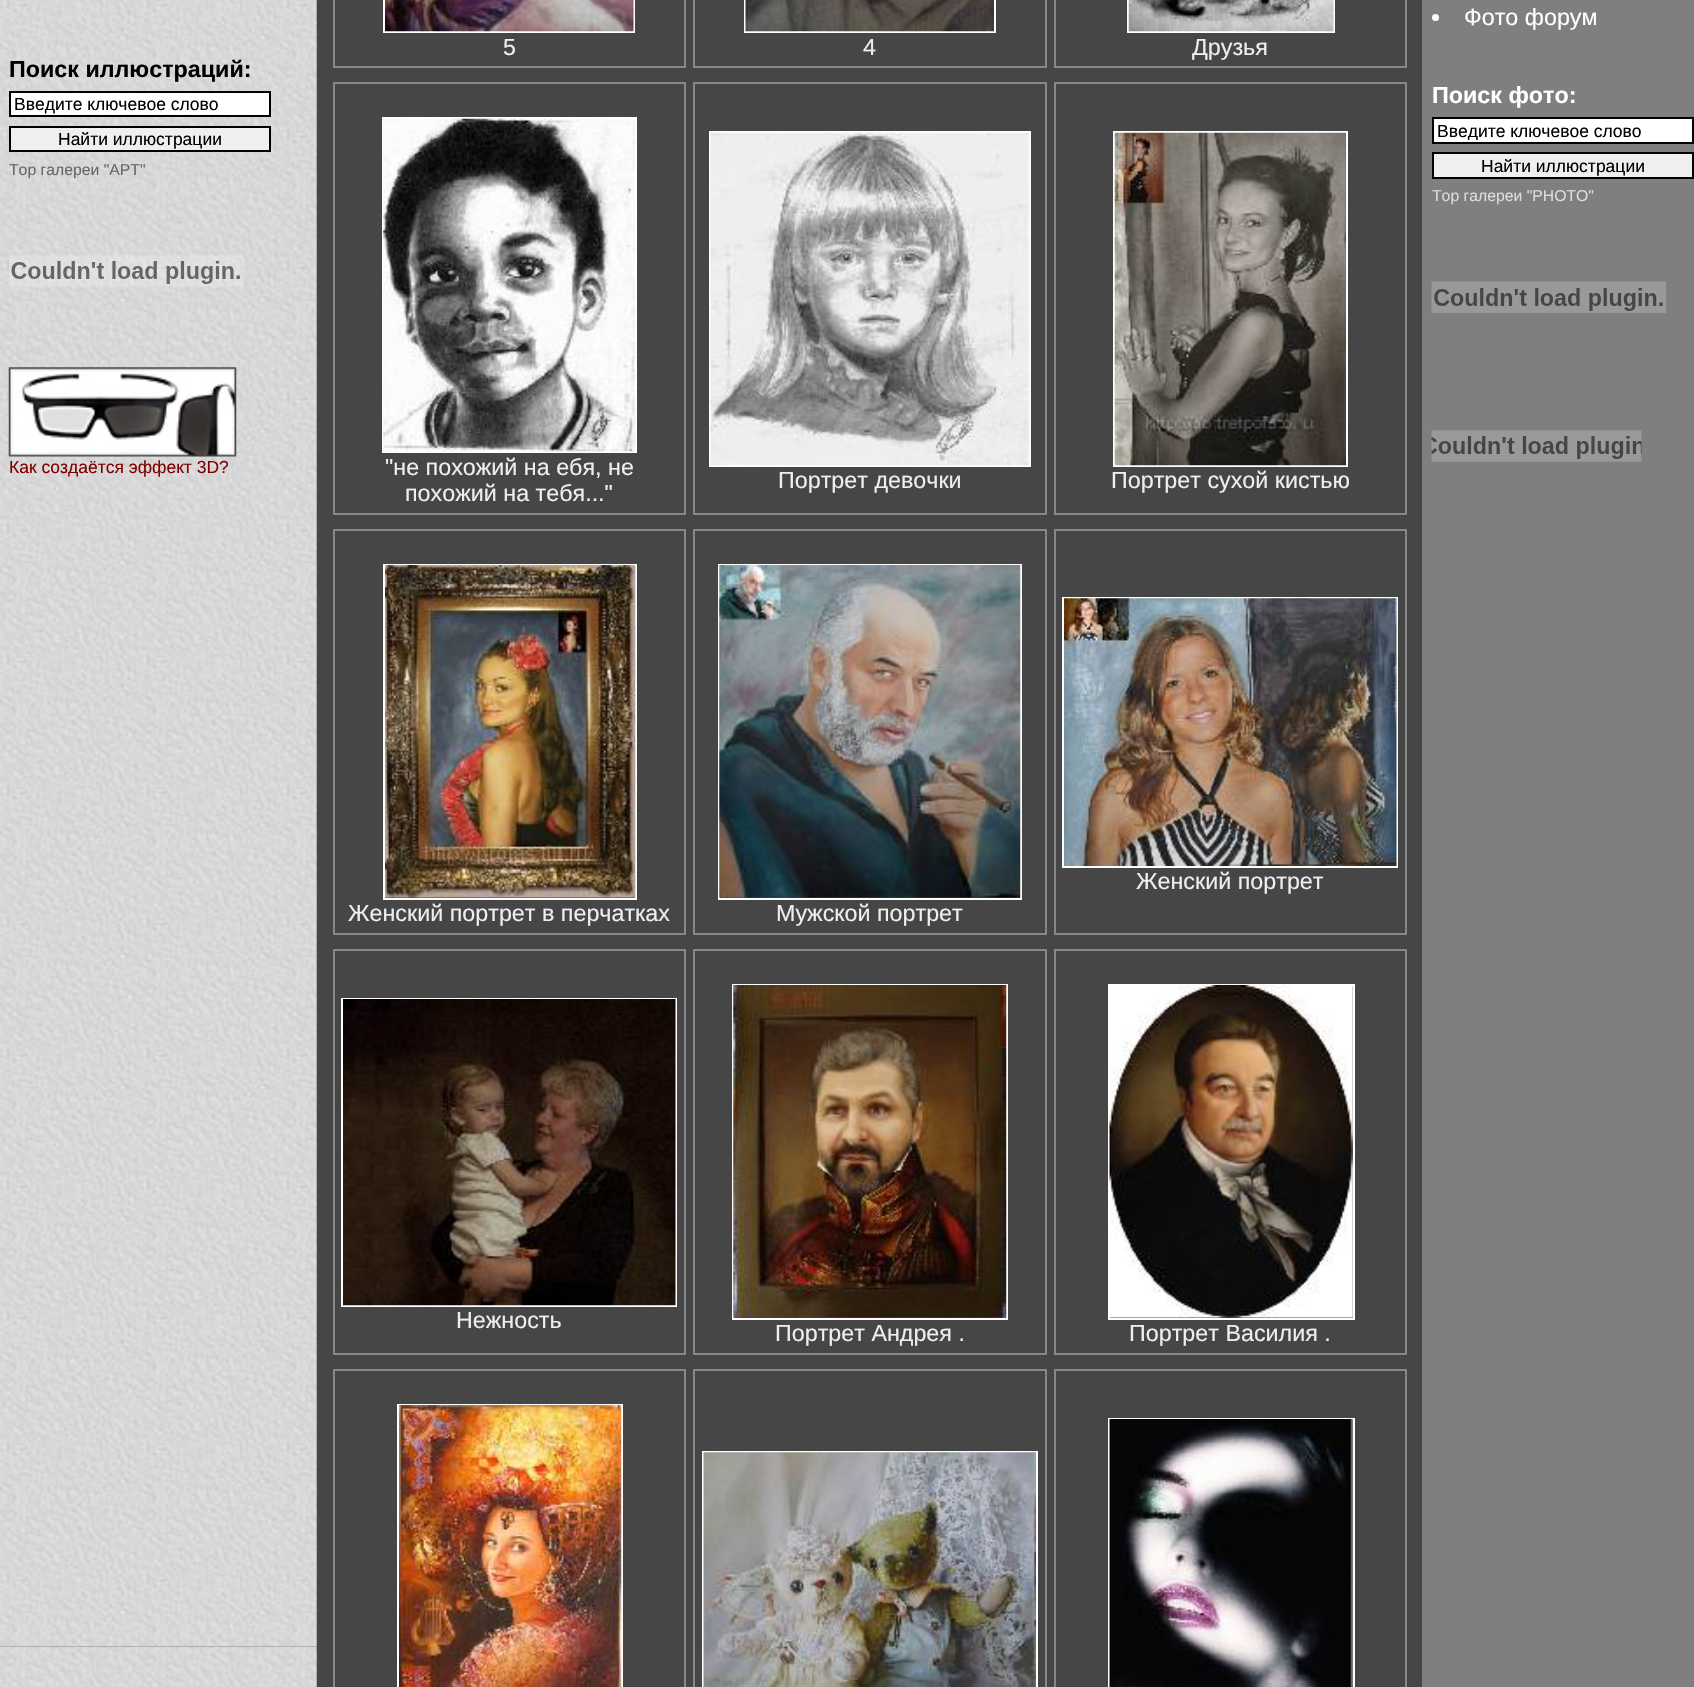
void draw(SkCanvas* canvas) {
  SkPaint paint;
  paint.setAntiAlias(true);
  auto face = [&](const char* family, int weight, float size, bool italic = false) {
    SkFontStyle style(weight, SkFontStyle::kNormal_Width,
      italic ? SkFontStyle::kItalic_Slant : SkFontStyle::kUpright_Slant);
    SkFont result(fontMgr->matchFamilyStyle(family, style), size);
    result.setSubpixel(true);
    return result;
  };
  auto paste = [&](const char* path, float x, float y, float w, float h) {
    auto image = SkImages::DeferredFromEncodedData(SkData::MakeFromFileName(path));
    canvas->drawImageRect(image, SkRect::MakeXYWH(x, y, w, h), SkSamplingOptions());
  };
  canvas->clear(0xff333333);
  paste("img/1.png", 0, 0, 317, 1647);
  paint.setColor(0xffffffff);
  canvas->drawRect(SkRect::MakeXYWH(10, 92, 260, 24), paint);
  paint.setStroke(true);
  paint.setStrokeWidth(2);
  paint.setColor(0xff000000);
  canvas->drawRect(SkRect::MakeXYWH(10, 92, 260, 24), paint);
  paint.setStroke(false);
  paint.setColor(0xffefefef);
  canvas->drawRect(SkRect::MakeXYWH(10, 127, 260, 24), paint);
  paint.setStroke(true);
  paint.setColor(0xff000000);
  canvas->drawRect(SkRect::MakeXYWH(10, 127, 260, 24), paint);
  paste("img/2.png", 9, 255, 234, 32);
  paste("img/3.png", 8, 367, 229, 90);
  paint.setStroke(false);
  paint.setColor(0xff464646);
  canvas->drawRect(SkRect::MakeXYWH(317, 0, 1105, 1687), paint);
  paint.setStroke(true);
  paint.setColor(0xff888888);
  canvas->drawRect(SkRect::MakeXYWH(334, -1, 351, 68), paint);
  paint.setColor(0xffffffff);
  canvas->drawRect(SkRect::MakeXYWH(384, -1, 250, 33), paint);
  paste("img/4.png", 385, 0, 249, 32);
  paint.setColor(0xff888888);
  canvas->drawRect(SkRect::MakeXYWH(694, -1, 352, 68), paint);
  paint.setColor(0xffffffff);
  canvas->drawRect(SkRect::MakeXYWH(745, -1, 250, 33), paint);
  paste("img/5.png", 745, 0, 249, 32);
  paint.setColor(0xff888888);
  canvas->drawRect(SkRect::MakeXYWH(1055, -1, 351, 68), paint);
  paint.setColor(0xffffffff);
  canvas->drawRect(SkRect::MakeXYWH(1128, -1, 206, 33), paint);
  paste("img/6.png", 1128, 0, 206, 32);
  paint.setColor(0xff888888);
  canvas->drawRect(SkRect::MakeXYWH(334, 83, 351, 431), paint);
  paint.setColor(0xffffffff);
  canvas->drawRect(SkRect::MakeXYWH(383, 118, 253, 334), paint);
  paste("img/7.png", 383, 118, 253, 334);
  paint.setColor(0xff888888);
  canvas->drawRect(SkRect::MakeXYWH(694, 83, 352, 431), paint);
  paint.setColor(0xffffffff);
  canvas->drawRect(SkRect::MakeXYWH(710, 132, 320, 334), paint);
  paste("img/8.png", 710, 132, 319, 334);
  paint.setColor(0xff888888);
  canvas->drawRect(SkRect::MakeXYWH(1055, 83, 351, 431), paint);
  paint.setColor(0xffffffff);
  canvas->drawRect(SkRect::MakeXYWH(1114, 132, 233, 334), paint);
  paste("img/9.png", 1114, 132, 232, 334);
  paint.setColor(0xff888888);
  canvas->drawRect(SkRect::MakeXYWH(1055, 530, 351, 404), paint);
  paint.setColor(0xffffffff);
  canvas->drawRect(SkRect::MakeXYWH(1063, 598, 334, 269), paint);
  paste("img/10.png", 1064, 598, 333, 268);
  paint.setColor(0xff888888);
  canvas->drawRect(SkRect::MakeXYWH(334, 530, 351, 404), paint);
  paint.setColor(0xffffffff);
  canvas->drawRect(SkRect::MakeXYWH(384, 565, 252, 334), paint);
  paste("img/11.png", 385, 565, 251, 333);
  paint.setColor(0xff888888);
  canvas->drawRect(SkRect::MakeXYWH(694, 530, 352, 404), paint);
  paint.setColor(0xffffffff);
  canvas->drawRect(SkRect::MakeXYWH(719, 565, 302, 334), paint);
  paste("img/12.png", 719, 565, 302, 333);
  paint.setColor(0xff888888);
  canvas->drawRect(SkRect::MakeXYWH(334, 950, 351, 404), paint);
  paint.setColor(0xffffffff);
  canvas->drawRect(SkRect::MakeXYWH(342, 999, 334, 307), paint);
  paste("img/13.png", 343, 999, 333, 307);
  paint.setColor(0xff888888);
  canvas->drawRect(SkRect::MakeXYWH(694, 950, 352, 404), paint);
  paint.setColor(0xffffffff);
  canvas->drawRect(SkRect::MakeXYWH(733, 985, 274, 334), paint);
  paste("img/14.png", 733, 985, 274, 333);
  paint.setColor(0xff888888);
  canvas->drawRect(SkRect::MakeXYWH(1055, 950, 351, 404), paint);
  paint.setColor(0xffffffff);
  canvas->drawRect(SkRect::MakeXYWH(1109, 985, 245, 334), paint);
  paste("img/15.png", 1109, 985, 244, 333);
  paint.setColor(0xff888888);
  canvas->drawRect(SkRect::MakeXYWH(334, 1370, 351, 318), paint);
  paint.setColor(0xffffffff);
  canvas->drawRect(SkRect::MakeXYWH(398, 1405, 224, 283), paint);
  paste("img/16.png", 399, 1405, 223, 282);
  paint.setColor(0xff888888);
  canvas->drawRect(SkRect::MakeXYWH(694, 1370, 352, 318), paint);
  paint.setColor(0xffffffff);
  canvas->drawRect(SkRect::MakeXYWH(703, 1452, 334, 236), paint);
  paste("img/17.png", 703, 1452, 333, 235);
  paint.setColor(0xff888888);
  canvas->drawRect(SkRect::MakeXYWH(1055, 1370, 351, 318), paint);
  paint.setColor(0xffffffff);
  canvas->drawRect(SkRect::MakeXYWH(1109, 1419, 245, 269), paint);
  paste("img/18.png", 1109, 1419, 244, 268);
  paint.setStroke(false);
  paint.setColor(0xff7f7f7f);
  canvas->drawRect(SkRect::MakeXYWH(1422, 0, 272, 1687), paint);
  paint.setColor(0xffffffff);
  canvas->drawCircle(1435.5f, 17.5f, 3.5f, paint);
  canvas->drawRect(SkRect::MakeXYWH(1433, 118, 260, 25), paint);
  paint.setStroke(true);
  paint.setColor(0xff000000);
  canvas->drawRect(SkRect::MakeXYWH(1433, 118, 260, 25), paint);
  paint.setStroke(false);
  paint.setColor(0xffefefef);
  canvas->drawRect(SkRect::MakeXYWH(1433, 153, 260, 25), paint);
  paint.setStroke(true);
  paint.setColor(0xff000000);
  canvas->drawRect(SkRect::MakeXYWH(1433, 153, 260, 25), paint);
  paste("img/19.png", 1431, 281, 235, 32);
  paste("img/20.png", 1431, 430, 211, 32);
  paste("img/21.png", 0, 1646, 317, 41);
  auto f0 = face("Liberation Sans", 700, 23.3f);
  paint.setStroke(false);
  canvas->drawString("Поиск иллюстраций:", 9, 77, f0, paint);
  auto f1 = face("Liberation Sans", 400, 17.5f);
  canvas->drawString("Введите ключевое слово", 14, 110, f1, paint);
  canvas->drawString("Найти иллюстрации", 58, 145, f1, paint);
  auto f2 = face("Liberation Sans", 400, 15.75f);
  paint.setColor(0xff666666);
  canvas->drawString("Top галереи \"АРТ\"", 9, 175, f2, paint);
  paint.setColor(0xff800000);
  canvas->drawString("Как создаётся эффект 3D?", 9, 473, f1, paint);
  auto f3 = face("Liberation Sans", 400, 23.3f);
  paint.setColor(0xffeeeeee);
  {
    const struct { const char* s; float x, y; } items[] = {
      {"5", 503, 55},
      {"4", 863, 55},
      {"Друзья", 1192, 55},
      {"\"не похожий на ебя, не", 385, 475},
      {"похожий на тебя...\"", 405, 501},
      {"Портрет девочки", 778, 488},
      {"Портрет сухой кистью", 1111, 488},
      {"Женский портрет", 1136, 889},
      {"Женский портрет в перчатках", 348, 921},
      {"Мужской портрет", 776, 921},
      {"Нежность", 456, 1328},
      {"Портрет Андрея .", 775, 1341},
      {"Портрет Василия .", 1129, 1341},
    };
    for (auto [s, x, y] : items) {
      canvas->drawString(s, x, y, f3, paint);
    }
  }
  paint.setColor(0xffffffff);
  canvas->drawString("Фото форум", 1464, 25, f3, paint);
  canvas->drawString("Поиск фото:", 1432, 103, f0, paint);
  canvas->save();
  canvas->clipRect(SkRect::MakeXYWH(1437, 121, 252, 19));
  paint.setColor(0xff000000);
  canvas->drawString("Введите ключевое слово", 1437, 137, f1, paint);
  canvas->restore();
  canvas->drawString("Найти иллюстрации", 1481, 172, f1, paint);
  paint.setColor(0xffdddddd);
  canvas->drawString("Top галереи \"PHOTO\"", 1432, 201, f2, paint);
}
